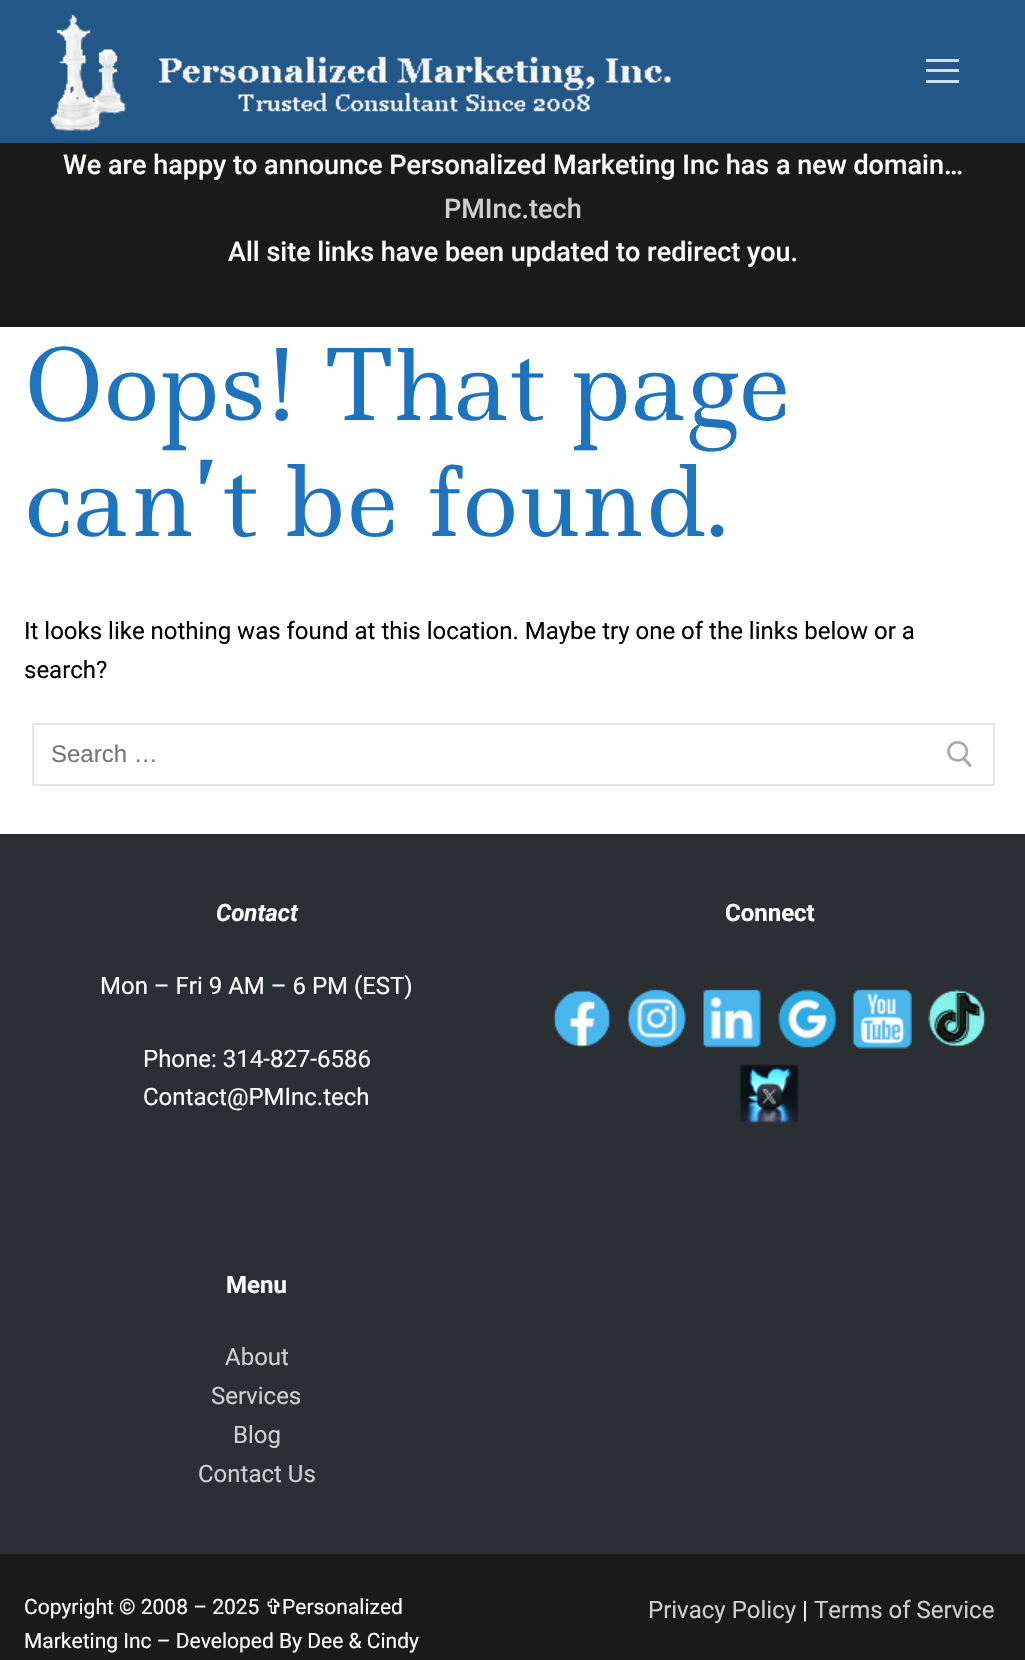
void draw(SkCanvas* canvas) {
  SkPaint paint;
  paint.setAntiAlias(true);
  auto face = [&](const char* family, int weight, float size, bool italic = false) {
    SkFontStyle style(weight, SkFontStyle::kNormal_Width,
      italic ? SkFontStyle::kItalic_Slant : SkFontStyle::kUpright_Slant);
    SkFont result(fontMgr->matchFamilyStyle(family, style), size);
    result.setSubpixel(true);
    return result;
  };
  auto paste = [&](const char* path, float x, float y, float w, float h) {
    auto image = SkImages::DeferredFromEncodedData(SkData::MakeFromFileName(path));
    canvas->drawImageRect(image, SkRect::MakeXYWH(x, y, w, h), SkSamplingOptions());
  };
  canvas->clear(0xffffffff);
  paint.setColor(0xff235787);
  canvas->drawRect(SkRect::MakeXYWH(0, 0, 1025, 143), paint);
  paste("img/1.png", 50, 14, 621, 117);
  {
    const struct { float x, y, w, h; SkColor color; } items[] = {
      {926, 69, 33, 3, 0xffd1dce6},
      {926, 59, 33, 3, 0xffd1dce6},
      {926, 80, 33, 3, 0xffd1dce6},
      {0, 143, 1025, 184, 0xff1a1a1a},
    };
    for (auto [x, y, w, h, color] : items) {
      paint.setColor(color);
      canvas->drawRect(SkRect::MakeXYWH(x, y, w, h), paint);
    }
  }
  paint.setStroke(true);
  paint.setStrokeWidth(2);
  paint.setColor(0xffe5e5e5);
  canvas->drawRoundRect(SkRect::MakeXYWH(33, 724, 961, 61), 0.5f, 0.5f, paint);
  paste("img/2.png", 947, 741, 25, 27);
  paint.setStroke(false);
  paint.setColor(0xff292f33);
  canvas->drawRect(SkRect::MakeXYWH(0, 834, 1025, 720), paint);
  paste("img/3.png", 553, 990, 58, 58);
  paste("img/4.png", 628, 989, 58, 59);
  paste("img/5.png", 703, 989, 58, 59);
  paste("img/6.png", 778, 989, 59, 59);
  paste("img/7.png", 852, 988, 60, 61);
  paste("img/8.png", 928, 989, 58, 59);
  paste("img/9.png", 739, 1064, 60, 59);
  paint.setColor(0xff1a1a1a);
  canvas->drawRect(SkRect::MakeXYWH(0, 1554, 1025, 106), paint);
  auto f0 = face("Roboto", 500, 27);
  paint.setColor(0xfffdfdfd);
  canvas->drawString("We are happy to announce Personalized Marketing Inc has a new domain…", 63, 174, f0, paint);
  paint.setColor(0xffcfcfcf);
  canvas->drawString("PMInc.tech", 444, 218, f0, paint);
  paint.setColor(0xfffdfdfd);
  canvas->drawString("All site links have been updated to redirect you.", 228, 261, f0, paint);
  auto f1 = face("Ledger", 400, 96);
  paint.setColor(0xff1e73be);
  canvas->drawString("Oops! That page", 24, 420, f1, paint);
  canvas->drawString("can’t be found.", 24, 536, f1, paint);
  auto f2 = face("Roboto", 400, 24);
  paint.setColor(0xff000000);
  canvas->drawString("It looks like nothing was found at this location. Maybe try one of the links below or a", 24, 639, f2, paint);
  canvas->drawString("search?", 24, 678, f2, paint);
  auto f3 = face("Liberation Sans", 400, 24);
  paint.setColor(0xff757575);
  canvas->drawString("Search …", 51, 762, f3, paint);
  auto f4 = face("Roboto", 700, 24, true);
  paint.setColor(0xfffdfdfd);
  canvas->drawString("Contact", 216, 921, f4, paint);
  {
    const struct { const char* s; float x, y; } items[] = {
      {"Mon – Fri 9 AM – 6 PM (EST)", 100, 994},
      {"Phone: 314-827-6586", 143, 1067},
      {"Contact@PMInc.tech", 143, 1105},
    };
    for (auto [s, x, y] : items) {
      canvas->drawString(s, x, y, f2, paint);
    }
  }
  auto f5 = face("Roboto", 700, 24);
  canvas->drawString("Connect", 725, 921, f5, paint);
  canvas->drawString("Menu", 226, 1293, f5, paint);
  paint.setColor(0xffcfcfcf);
  {
    const struct { const char* s; float x, y; } items[] = {
      {"About", 225, 1365},
      {"Services", 211, 1404},
      {"Blog", 233, 1443},
      {"Contact Us", 198, 1482},
    };
    for (auto [s, x, y] : items) {
      canvas->drawString(s, x, y, f2, paint);
    }
  }
  auto f6 = face("Roboto", 400, 21);
  paint.setColor(0xfffdfdfd);
  canvas->drawString("Copyright © 2008 – 2025", 24, 1614, f6, paint);
  auto f7 = face("DejaVu Sans", 400, 21);
  canvas->drawString("✞", 265, 1614, f7, paint);
  canvas->drawString("Personalized", 282, 1614, f6, paint);
  canvas->drawString("Marketing Inc – Developed By Dee & Cindy", 24, 1648, f6, paint);
  paint.setColor(0xffcfcfcf);
  canvas->drawString("Privacy Policy", 648, 1618, f2, paint);
  paint.setColor(0xfffdfdfd);
  canvas->drawString("|", 802, 1618, f2, paint);
  paint.setColor(0xffcfcfcf);
  canvas->drawString("Terms of Service", 814, 1618, f2, paint);
}
